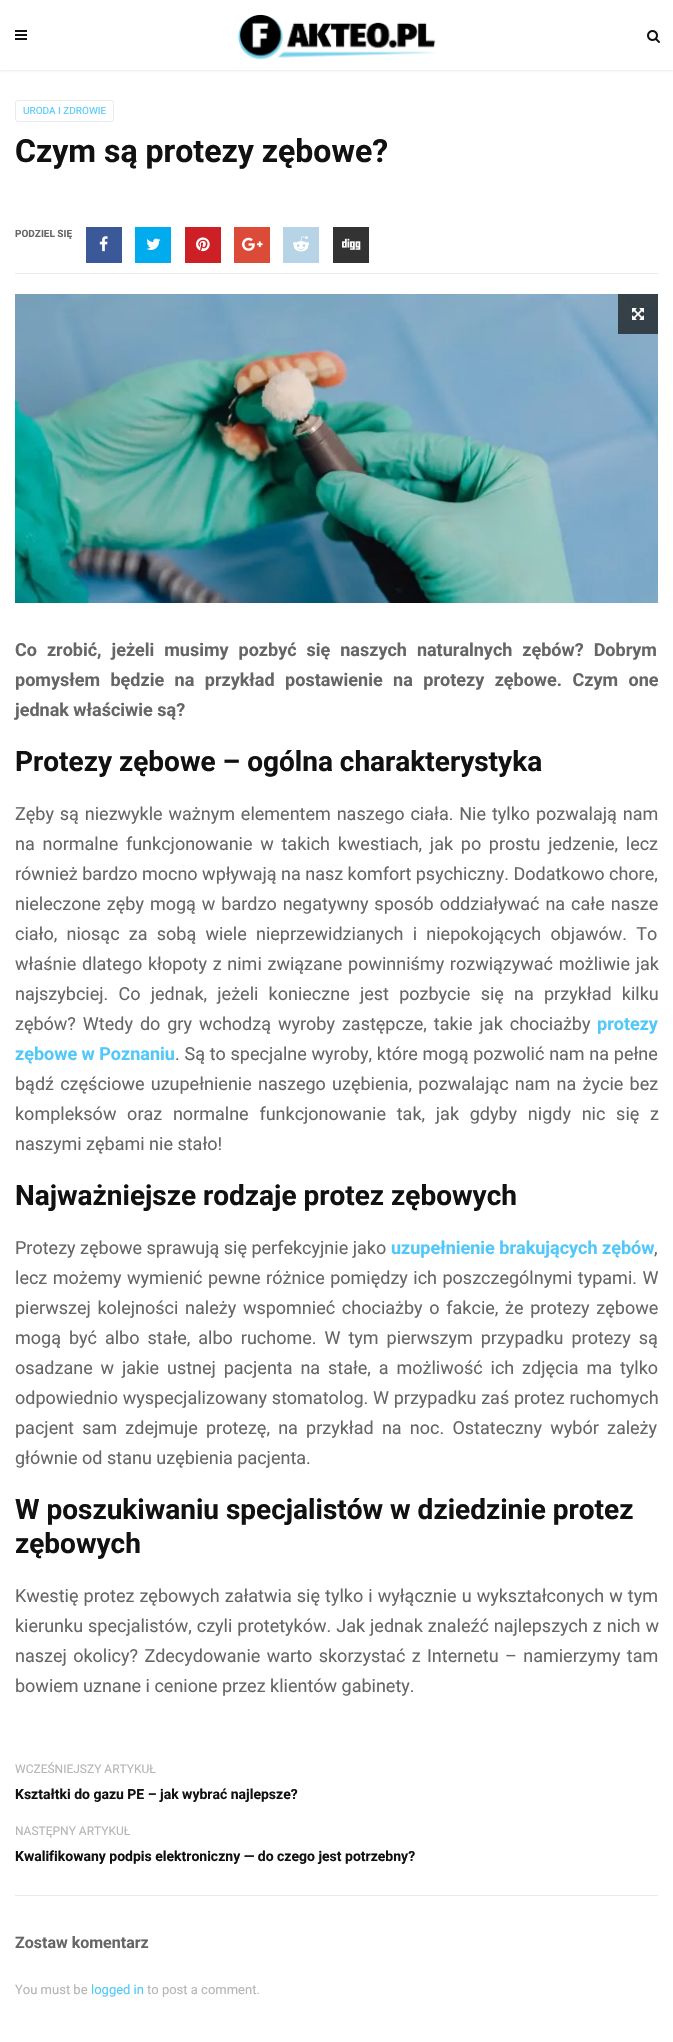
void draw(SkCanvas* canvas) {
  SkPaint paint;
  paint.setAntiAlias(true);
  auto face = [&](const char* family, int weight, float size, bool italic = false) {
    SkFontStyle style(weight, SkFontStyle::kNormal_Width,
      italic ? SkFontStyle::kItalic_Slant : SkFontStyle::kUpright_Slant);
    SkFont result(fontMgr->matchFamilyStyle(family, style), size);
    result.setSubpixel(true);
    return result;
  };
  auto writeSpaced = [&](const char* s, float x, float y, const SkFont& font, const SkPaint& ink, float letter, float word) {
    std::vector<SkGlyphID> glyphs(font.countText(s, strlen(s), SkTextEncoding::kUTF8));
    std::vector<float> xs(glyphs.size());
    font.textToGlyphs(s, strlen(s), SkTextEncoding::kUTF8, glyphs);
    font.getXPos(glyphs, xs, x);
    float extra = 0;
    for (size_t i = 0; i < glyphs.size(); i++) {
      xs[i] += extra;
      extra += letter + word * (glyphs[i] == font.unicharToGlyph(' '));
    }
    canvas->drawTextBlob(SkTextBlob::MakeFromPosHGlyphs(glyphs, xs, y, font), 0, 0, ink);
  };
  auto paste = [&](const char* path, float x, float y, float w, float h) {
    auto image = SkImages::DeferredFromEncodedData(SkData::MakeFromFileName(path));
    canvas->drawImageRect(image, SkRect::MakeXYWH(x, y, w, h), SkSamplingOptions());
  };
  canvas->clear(0xffffffff);
  paint.setColor(0xffeaeaea);
  paint.setMaskFilter(SkMaskFilter::MakeBlur(kNormal_SkBlurStyle, 1));
  canvas->drawRect(SkRect::MakeXYWH(0, 1, 673, 70), paint);
  paint.setMaskFilter(nullptr);
  {
    const struct { float x, y, w, h; SkColor color; } items[] = {
      {0, 0, 673, 70, 0xffffffff},
      {15, 30, 12, 2, 0xff111111},
      {15, 34, 12, 2, 0xff111111},
      {15, 38, 12, 2, 0xff111111},
    };
    for (auto [x, y, w, h, color] : items) {
      paint.setColor(color);
      canvas->drawRect(SkRect::MakeXYWH(x, y, w, h), paint);
    }
  }
  paste("img/1.png", 238, 14, 198, 46);
  paste("img/2.png", 647, 30, 13, 13);
  paint.setStroke(true);
  paint.setStrokeWidth(1);
  paint.setColor(0xffeaeaea);
  canvas->drawRoundRect(SkRect::MakeXYWH(15.5f, 100.5f, 98, 21), 2.5f, 2.5f, paint);
  paint.setStroke(false);
  paint.setColor(0xff3b5998);
  canvas->drawRect(SkRect::MakeXYWH(86, 227, 36, 36), paint);
  paste("img/3.png", 99, 236, 9, 16);
  paint.setColor(0xff00aced);
  canvas->drawRect(SkRect::MakeXYWH(135, 227, 36, 36), paint);
  paste("img/4.png", 146, 238, 15, 12);
  paint.setColor(0xffcc2026);
  canvas->drawRect(SkRect::MakeXYWH(185, 227, 36, 36), paint);
  paste("img/5.png", 196, 237, 14, 15);
  paint.setColor(0xffdc4a38);
  canvas->drawRect(SkRect::MakeXYWH(234, 227, 36, 36), paint);
  paste("img/6.png", 242, 237, 21, 14);
  paint.setColor(0xffb6d4e5);
  canvas->drawRect(SkRect::MakeXYWH(283, 227, 36, 36), paint);
  paste("img/7.png", 293, 236, 16, 16);
  paint.setColor(0xff333333);
  canvas->drawRect(SkRect::MakeXYWH(333, 227, 36, 36), paint);
  paste("img/8.png", 342, 238, 19, 12);
  paint.setColor(0xffeaeaea);
  canvas->drawRect(SkRect::MakeXYWH(15, 273, 643, 1), paint);
  paste("img/9.png", 15, 294, 643, 309);
  paint.setColor(0xb3111111);
  canvas->drawRect(SkRect::MakeXYWH(618, 294, 40, 40), paint);
  paste("img/10.png", 632, 308, 12, 12);
  paint.setColor(0xffeaeaea);
  canvas->drawRect(SkRect::MakeXYWH(15, 1895, 643, 1), paint);
  auto f0 = face("Roboto", 400, 10);
  paint.setColor(0xff51c8fa);
  canvas->drawString("URODA I ZDROWIE", 23, 114, f0, paint);
  auto f1 = face("Roboto", 700, 32);
  paint.setColor(0xff111111);
  canvas->drawString("Czym są protezy zębowe?", 15, 162, f1, paint);
  auto f2 = face("Roboto", 700, 10);
  paint.setColor(0xff666666);
  canvas->drawString("PODZIEL SIĘ", 15, 237, f2, paint);
  auto f3 = face("Roboto", 700, 18);
  writeSpaced("Co zrobić, jeżeli musimy pozbyć się naszych naturalnych zębów? Dobrym", 15, 656, f3, paint, 0, 5.5f);
  writeSpaced("pomysłem będzie na przykład postawienie na protezy zębowe. Czym one", 15, 686, f3, paint, 0, 6);
  canvas->drawString("jednak właściwie są?", 15, 716, f3, paint);
  auto f4 = face("Roboto", 700, 28);
  paint.setColor(0xff111111);
  canvas->drawString("Protezy zębowe – ogólna charakterystyka", 15, 771, f4, paint);
  auto f5 = face("Roboto", 400, 18);
  paint.setColor(0xff666666);
  writeSpaced("Zęby są niezwykle ważnym elementem naszego ciała. Nie tylko pozwalają nam", 15, 820, f5, paint, 0, 1.4f);
  writeSpaced("na normalne funkcjonowanie w takich kwestiach, jak po prostu jedzenie, lecz", 15, 850, f5, paint, 0, 3.25f);
  canvas->drawString("również bardzo mocno wpływają na nasz komfort psychiczny. Dodatkowo chore,", 15, 880, f5, paint);
  writeSpaced("nieleczone zęby mogą w bardzo negatywny sposób oddziaływać na całe nasze", 15, 910, f5, paint, 0, 1.5f);
  writeSpaced("ciało, niosąc za sobą wiele nieprzewidzianych i niepokojących objawów. To", 15, 940, f5, paint, 0, 4.75f);
  writeSpaced("właśnie dlatego kłopoty z nimi związane powinniśmy rozwiązywać możliwie jak", 15, 970, f5, paint, 0, 1.25f);
  writeSpaced("najszybciej. Co jednak, jeżeli konieczne jest pozbycie się na przykład kilku", 15, 1000, f5, paint, 0, 5.75f);
  writeSpaced("zębów? Wtedy do gry wchodzą wyroby zastępcze, takie jak chociażby", 15, 1030, f5, paint, 0, 2.5f);
  paint.setColor(0xff51c8fa);
  canvas->drawString("protezy", 597, 1030, f3, paint);
  canvas->drawString("zębowe w Poznaniu", 15, 1060, f3, paint);
  paint.setColor(0xff666666);
  writeSpaced(". Są to specjalne wyroby, które mogą pozwolić nam na pełne", 175, 1060, f5, paint, 0, 0.25f);
  writeSpaced("bądź częściowe uzupełnienie naszego uzębienia, pozwalając nam na życie bez", 15, 1090, f5, paint, 0, 1.75f);
  writeSpaced("kompleksów oraz normalne funkcjonowanie tak, jak gdyby nigdy nic się z", 15, 1120, f5, paint, 0, 6.25f);
  canvas->drawString("naszymi zębami nie stało!", 15, 1150, f5, paint);
  paint.setColor(0xff111111);
  canvas->drawString("Najważniejsze rodzaje protez zębowych", 15, 1205, f4, paint);
  paint.setColor(0xff666666);
  canvas->drawString("Protezy zębowe sprawują się perfekcyjnie jako", 15, 1254, f5, paint);
  paint.setColor(0xff51c8fa);
  canvas->drawString("uzupełnienie brakujących zębów", 391, 1254, f3, paint);
  paint.setColor(0xff666666);
  canvas->drawString(",", 654, 1254, f5, paint);
  writeSpaced("lecz możemy wymienić pewne różnice pomiędzy ich poszczególnymi typami. W", 15, 1284, f5, paint, 0, 1);
  writeSpaced("pierwszej kolejności należy wspomnieć chociażby o fakcie, że protezy zębowe", 15, 1314, f5, paint, 0, 2.25f);
  writeSpaced("mogą być albo stałe, albo ruchome. W tym pierwszym przypadku protezy są", 15, 1344, f5, paint, 0, 3.5f);
  writeSpaced("osadzane w jakie ustnej pacjenta na stałe, a możliwość ich zdjęcia ma tylko", 15, 1374, f5, paint, 0, 3.4f);
  writeSpaced("odpowiednio wyspecjalizowany stomatolog. W przypadku zaś protez ruchomych", 15, 1404, f5, paint, 0, 0.25f);
  writeSpaced("pacjent sam zdejmuje protezę, na przykład na noc. Ostateczny wybór zależy", 15, 1434, f5, paint, 0, 3.75f);
  canvas->drawString("głównie od stanu uzębienia pacjenta.", 15, 1464, f5, paint);
  paint.setColor(0xff111111);
  canvas->drawString("W poszukiwaniu specjalistów w dziedzinie protez", 15, 1519, f4, paint);
  canvas->drawString("zębowych", 15, 1553, f4, paint);
  paint.setColor(0xff666666);
  writeSpaced("Kwestię protez zębowych załatwia się tylko i wyłącznie u wykształconych w tym", 15, 1602, f5, paint, 0, 0.6f);
  writeSpaced("kierunku specjalistów, czyli protetyków. Jak jednak znaleźć najlepszych z nich w", 15, 1632, f5, paint, 0, 0.5f);
  writeSpaced("naszej okolicy? Zdecydowanie warto skorzystać z Internetu – namierzymy tam", 15, 1662, f5, paint, 0, 1.9f);
  canvas->drawString("bowiem uznane i cenione przez klientów gabinety.", 15, 1692, f5, paint);
  auto f6 = face("Roboto", 400, 12);
  paint.setColor(0xffb5b5b5);
  canvas->drawString("WCZEŚNIEJSZY ARTYKUŁ", 15, 1773, f6, paint);
  auto f7 = face("Roboto", 700, 14);
  paint.setColor(0xff111111);
  canvas->drawString("Kształtki do gazu PE – jak wybrać najlepsze?", 15, 1799, f7, paint);
  paint.setColor(0xffb5b5b5);
  canvas->drawString("NASTĘPNY ARTYKUŁ", 15, 1835, f6, paint);
  paint.setColor(0xff111111);
  canvas->drawString("Kwalifikowany podpis elektroniczny — do czego jest potrzebny?", 15, 1861, f7, paint);
  auto f8 = face("Roboto", 700, 16);
  paint.setColor(0xff666666);
  canvas->drawString("Zostaw komentarz", 15, 1948, f8, paint);
  auto f9 = face("Roboto", 400, 13);
  paint.setColor(0xffb5b5b5);
  canvas->drawString("You must be", 15, 1994, f9, paint);
  paint.setColor(0xff51c8fa);
  canvas->drawString("logged in", 91, 1994, f9, paint);
  paint.setColor(0xffb5b5b5);
  canvas->drawString("to post a comment.", 147, 1994, f9, paint);
}
